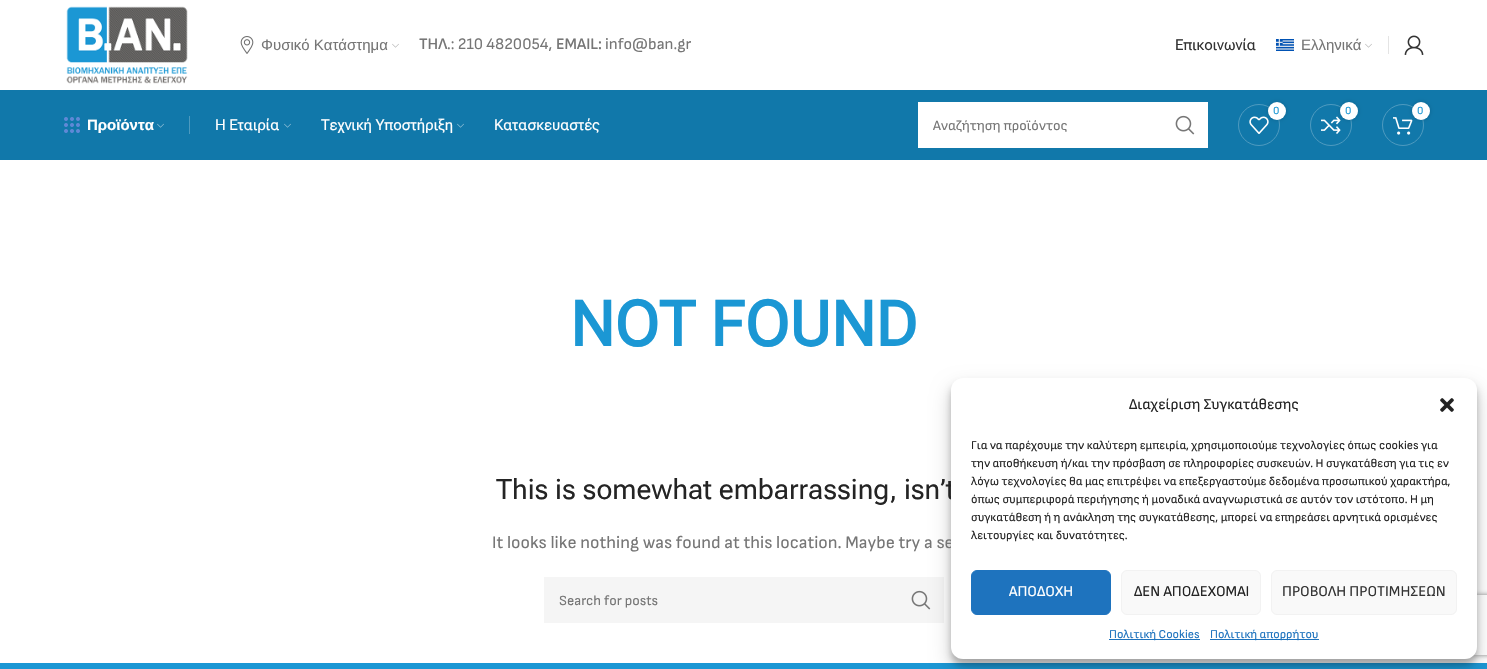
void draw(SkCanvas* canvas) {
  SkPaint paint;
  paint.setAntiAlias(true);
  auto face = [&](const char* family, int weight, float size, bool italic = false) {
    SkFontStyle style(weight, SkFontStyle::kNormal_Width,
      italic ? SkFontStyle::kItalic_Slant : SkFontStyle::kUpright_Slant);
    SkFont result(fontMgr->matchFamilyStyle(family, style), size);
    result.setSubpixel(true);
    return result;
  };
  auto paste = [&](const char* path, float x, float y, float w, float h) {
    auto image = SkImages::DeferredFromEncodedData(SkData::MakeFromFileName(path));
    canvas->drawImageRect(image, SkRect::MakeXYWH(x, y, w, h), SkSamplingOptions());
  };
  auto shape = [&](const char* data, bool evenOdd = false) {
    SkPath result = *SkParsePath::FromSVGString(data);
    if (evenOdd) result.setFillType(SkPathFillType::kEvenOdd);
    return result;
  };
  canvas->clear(0xffffffff);
  paste("img/1.png", 66, 6, 122, 78);
  paste("img/2.png", 240, 36, 14, 18);
  paste("img/3.png", 392, 43, 7, 5);
  paste("img/4.png", 1276, 39, 18, 12);
  paste("img/3.png", 1365, 43, 7, 5);
  paint.setColor(0xffe4e4e4);
  canvas->drawRect(SkRect::MakeXYWH(1388, 36, 1, 18), paint);
  paste("img/5.png", 1404, 35, 20, 20);
  paint.setColor(0xff1178aa);
  canvas->drawRect(SkRect::MakeXYWH(0, 90, 1487, 70), paint);
  paste("img/6.png", 64, 117, 16, 16);
  paste("img/7.png", 157, 123, 7, 5);
  paint.setColor(0xff4d9abf);
  canvas->drawRect(SkRect::MakeXYWH(189, 116, 1, 18), paint);
  paste("img/7.png", 284, 123, 7, 5);
  paste("img/7.png", 457, 123, 7, 5);
  paint.setStroke(true);
  paint.setStrokeWidth(1);
  canvas->drawCircle(1259, 125, 20.5f, paint);
  paste("img/8.png", 1249, 116, 20, 18);
  paint.setStroke(false);
  paint.setColor(0x2b000000);
  paint.setMaskFilter(SkMaskFilter::MakeBlur(kNormal_SkBlurStyle, 2));
  canvas->drawRoundRect(SkRect::MakeXYWH(1268, 102, 18, 18), 9, 9, paint);
  paint.setMaskFilter(nullptr);
  paint.setColor(0xffffffff);
  canvas->drawCircle(1277, 111, 9, paint);
  paint.setStroke(true);
  paint.setColor(0xff4d9abf);
  canvas->drawCircle(1331, 125, 20.5f, paint);
  paste("img/9.png", 1321, 116, 20, 18);
  paint.setStroke(false);
  paint.setColor(0x2b000000);
  paint.setMaskFilter(SkMaskFilter::MakeBlur(kNormal_SkBlurStyle, 2));
  canvas->drawRoundRect(SkRect::MakeXYWH(1340, 102, 18, 18), 9, 9, paint);
  paint.setMaskFilter(nullptr);
  paint.setColor(0xffffffff);
  canvas->drawCircle(1349, 111, 9, paint);
  paint.setStroke(true);
  paint.setColor(0xff4d9abf);
  canvas->drawCircle(1403, 125, 20.5f, paint);
  paste("img/10.png", 1393, 117, 20, 18);
  paint.setStroke(false);
  paint.setColor(0x2b000000);
  paint.setMaskFilter(SkMaskFilter::MakeBlur(kNormal_SkBlurStyle, 2));
  canvas->drawRoundRect(SkRect::MakeXYWH(1412, 102, 18, 18), 9, 9, paint);
  paint.setMaskFilter(nullptr);
  paint.setColor(0xffffffff);
  canvas->drawCircle(1421, 111, 9, paint);
  canvas->drawRect(SkRect::MakeXYWH(918, 102, 290, 46), paint);
  paste("img/11.png", 1175, 115, 20, 20);
  paint.setColor(0xfff5f5f5);
  canvas->drawRect(SkRect::MakeXYWH(544, 577, 400, 46), paint);
  paste("img/12.png", 911, 590, 20, 20);
  paint.setColor(0xff1b97d4);
  canvas->drawRect(SkRect::MakeXYWH(0, 663, 1487, 6), paint);
  paint.setColor(0x3b000000);
  paint.setMaskFilter(SkMaskFilter::MakeBlur(kNormal_SkBlurStyle, 3));
  canvas->drawRoundRect(SkRect::MakeXYWH(951, 384, 526, 281), 12, 12, paint);
  paint.setMaskFilter(nullptr);
  paint.setColor(0x30000000);
  paint.setMaskFilter(SkMaskFilter::MakeBlur(kNormal_SkBlurStyle, 10));
  canvas->drawRoundRect(SkRect::MakeXYWH(951, 388, 526, 281), 12, 12, paint);
  paint.setMaskFilter(nullptr);
  canvas->save();
  canvas->clipPath(shape("M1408 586H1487V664H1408ZM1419 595H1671C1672 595 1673 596 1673 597V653C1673 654 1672 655 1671 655H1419C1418 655 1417 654 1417 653V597C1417 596 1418 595 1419 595Z", true), true);
  paint.setColor(0xff808080);
  paint.setMaskFilter(SkMaskFilter::MakeBlur(kNormal_SkBlurStyle, 2.5f));
  canvas->drawRoundRect(SkRect::MakeXYWH(1417, 595, 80, 60), 2, 2, paint);
  paint.setMaskFilter(nullptr);
  canvas->restore();
  auto f0 = face("Liberation Sans", 400, 15);
  paint.setColor(0xff767676);
  canvas->drawString("Φυσικό Κατάστημα", 261, 50, f0, paint);
  auto f1 = face("Sofia Sans", 600, 16);
  canvas->drawString("ΤΗΛ", 419, 49, f1, paint);
  auto f2 = face("Sofia Sans", 400, 16);
  canvas->drawString(".: 210 4820054,", 447, 49, f2, paint);
  canvas->drawString("EMAIL:", 556, 49, f1, paint);
  canvas->drawString("info@ban.gr", 605, 49, f2, paint);
  auto f3 = face("Roboto Flex", 400, 15);
  paint.setColor(0xff333333);
  canvas->drawString("Επικοινωνία", 1175, 50, f3, paint);
  paint.setColor(0xff767676);
  canvas->drawString("Ελληνικά", 1301, 50, f0, paint);
  auto f4 = face("Liberation Sans", 700, 15);
  paint.setColor(0xffffffff);
  canvas->drawString("Προϊόντα", 87, 130, f4, paint);
  {
    const struct { const char* s; float x, y; } items[] = {
      {"Η Εταιρία", 215, 130},
      {"Τεχνική Υποστήριξη", 321, 130},
      {"Κατασκευαστές", 494, 130},
    };
    for (auto [s, x, y] : items) {
      canvas->drawString(s, x, y, f3, paint);
    }
  }
  auto f5 = face("Sofia Sans", 400, 11);
  paint.setColor(0xff1b97d4);
  {
    const struct { const char* s; float x, y; } items[] = {
      {"0", 1273, 114},
      {"0", 1345, 114},
      {"0", 1417, 114},
    };
    for (auto [s, x, y] : items) {
      canvas->drawString(s, x, y, f5, paint);
    }
  }
  auto f6 = face("Sofia Sans", 400, 14);
  paint.setColor(0xff767676);
  canvas->drawString("Αναζήτηση προϊόντος", 933, 130, f6, paint);
  auto f7 = face("Roboto Flex", 700, 62.5f);
  paint.setColor(0xff1b97d4);
  canvas->drawString("NOT FOUND", 570, 346, f7, paint);
  auto f8 = face("Roboto Flex", 400, 28);
  paint.setColor(0xff242424);
  canvas->drawString("This is somewhat embarrassing, isn’t", 496, 499, f8, paint);
  auto f9 = face("Sofia Sans", 400, 17.6f);
  paint.setColor(0xff767676);
  canvas->drawString("It looks like nothing was found at this location. Maybe try a se", 492, 548, f9, paint);
  canvas->drawString("Search for posts", 559, 605, f6, paint);
  paint.setColor(0xffffffff);
  canvas->drawRoundRect(SkRect::MakeXYWH(951, 378, 526, 281), 12, 12, paint);
  auto f10 = face("Sofia Sans", 400, 15);
  paint.setColor(0xff242424);
  canvas->drawString("Διαχείριση Συγκατάθεσης", 1129, 409, f10, paint);
  paste("img/13.png", 1440, 398, 14, 14);
  auto f11 = face("Sofia Sans", 400, 12);
  {
    const struct { const char* s; float x, y; } items[] = {
      {"Για να παρέχουμε την καλύτερη εμπειρία, χρησιμοποιούμε τεχνολογίες όπως cookies για", 971, 449},
      {"την αποθήκευση ή/και την πρόσβαση σε πληροφορίες συσκευών. Η συγκατάθεση για τις εν", 971, 467},
      {"λόγω τεχνολογίες θα μας επιτρέψει να επεξεργαστούμε δεδομένα προσωπικού χαρακτήρα,", 971, 485},
      {"όπως συμπεριφορά περιήγησης ή μοναδικά αναγνωριστικά σε αυτόν τον ιστότοπο. Η μη", 971, 503},
      {"συγκατάθεση ή η ανάκληση της συγκατάθεσης, μπορεί να επηρεάσει αρνητικά ορισμένες", 971, 521},
      {"λειτουργίες και δυνατότητες.", 971, 539},
    };
    for (auto [s, x, y] : items) {
      canvas->drawString(s, x, y, f11, paint);
    }
  }
  paint.setColor(0xff1e73be);
  canvas->drawRoundRect(SkRect::MakeXYWH(971.5f, 570.5f, 139, 44), 5.5f, 5.5f, paint);
  paint.setStroke(true);
  canvas->drawRoundRect(SkRect::MakeXYWH(971.5f, 570.5f, 139, 44), 5.5f, 5.5f, paint);
  paint.setStroke(false);
  paint.setColor(0xffffffff);
  canvas->drawString("ΑΠΟΔΟΧΗ", 1009, 596, f10, paint);
  paint.setColor(0xfff9f9f9);
  canvas->drawRoundRect(SkRect::MakeXYWH(1121.5f, 570.5f, 139, 44), 5.5f, 5.5f, paint);
  paint.setStroke(true);
  paint.setColor(0xfff2f2f2);
  canvas->drawRoundRect(SkRect::MakeXYWH(1121.5f, 570.5f, 139, 44), 5.5f, 5.5f, paint);
  paint.setStroke(false);
  paint.setColor(0xff242424);
  canvas->drawString("ΔΕΝ ΑΠΟΔΕΧΟΜΑΙ", 1134, 596, f10, paint);
  paint.setColor(0xfff9f9f9);
  canvas->drawRoundRect(SkRect::MakeXYWH(1271.5f, 570.5f, 185, 44), 5.5f, 5.5f, paint);
  paint.setStroke(true);
  paint.setColor(0xfff2f2f2);
  canvas->drawRoundRect(SkRect::MakeXYWH(1271.5f, 570.5f, 185, 44), 5.5f, 5.5f, paint);
  paint.setStroke(false);
  paint.setColor(0xff333333);
  canvas->drawString("ΠΡΟΒΟΛΗ ΠΡΟΤΙΜΗΣΕΩΝ", 1282, 596, f10, paint);
  paint.setColor(0xff1e73be);
  canvas->drawRect(SkRect::MakeXYWH(1109, 639, 91, 1), paint);
  canvas->drawString("Πολιτική Cookies", 1109, 638, f11, paint);
  canvas->drawRect(SkRect::MakeXYWH(1210, 639, 109, 1), paint);
  canvas->drawString("Πολιτική απορρήτου", 1210, 638, f11, paint);
}
